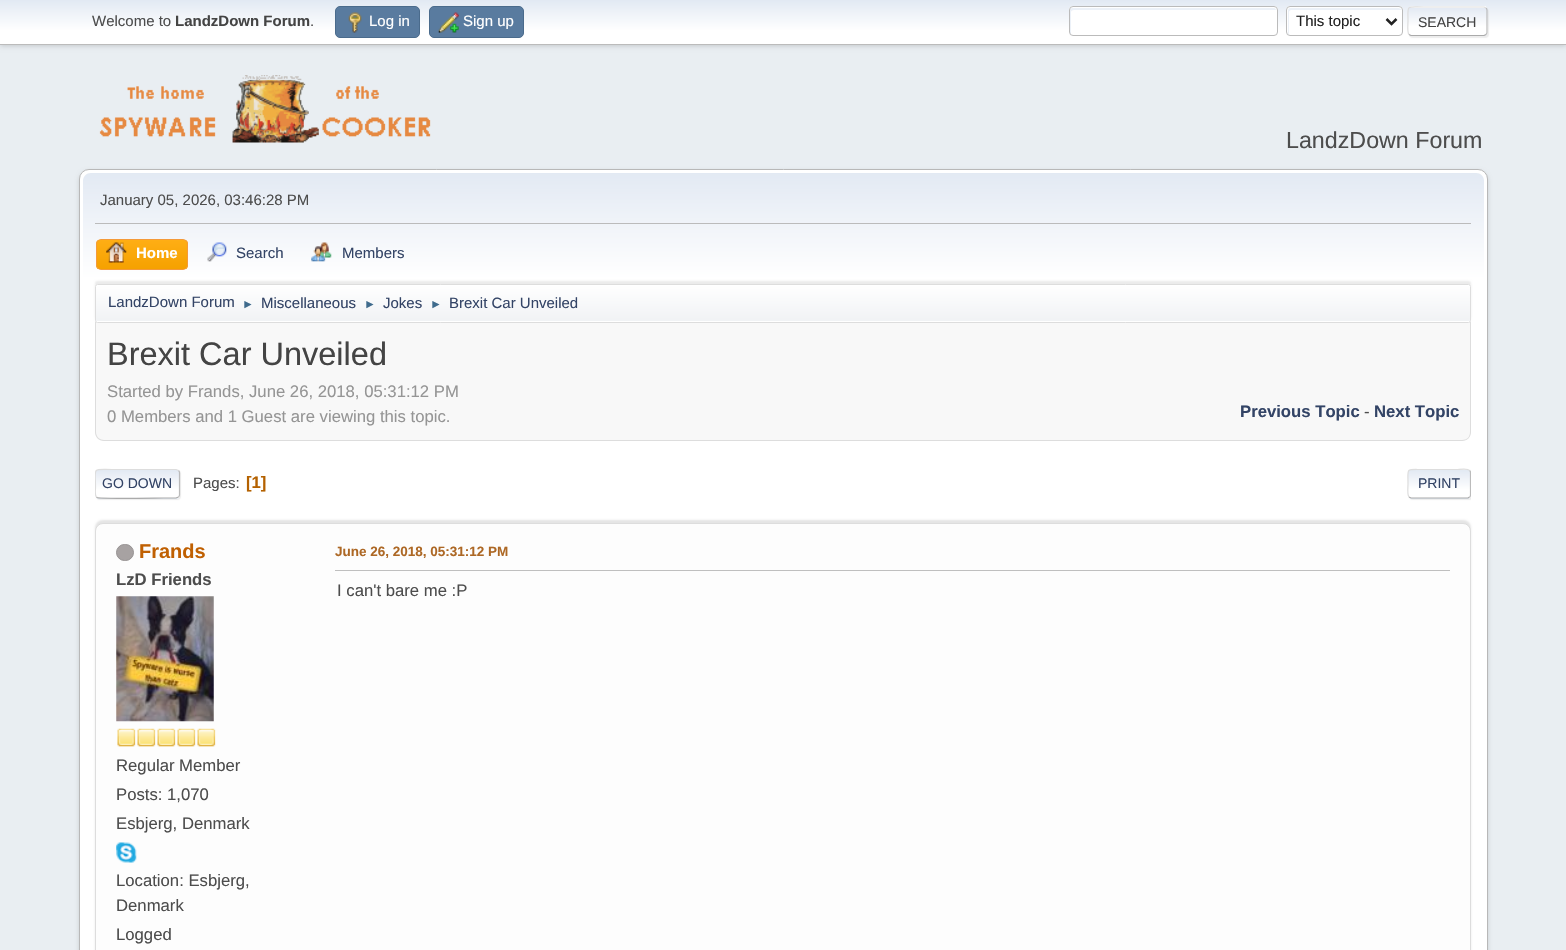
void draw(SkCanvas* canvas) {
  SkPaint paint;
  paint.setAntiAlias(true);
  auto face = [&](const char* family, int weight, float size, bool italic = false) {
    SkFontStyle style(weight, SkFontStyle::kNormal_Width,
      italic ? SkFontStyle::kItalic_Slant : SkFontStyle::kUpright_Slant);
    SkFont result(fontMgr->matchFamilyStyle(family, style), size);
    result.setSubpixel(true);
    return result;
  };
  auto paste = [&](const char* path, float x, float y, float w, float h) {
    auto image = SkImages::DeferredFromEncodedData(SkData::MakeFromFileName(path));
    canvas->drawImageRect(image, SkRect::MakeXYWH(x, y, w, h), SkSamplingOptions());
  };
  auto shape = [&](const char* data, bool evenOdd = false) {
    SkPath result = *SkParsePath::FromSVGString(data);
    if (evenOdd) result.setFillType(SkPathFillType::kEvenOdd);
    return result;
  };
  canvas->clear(0xffe9eef2);
  paint.setColor(0x29000000);
  paint.setMaskFilter(SkMaskFilter::MakeBlur(kNormal_SkBlurStyle, 2.5f));
  canvas->drawRect(SkRect::MakeXYWH(0, 1, 1566, 45), paint);
  paint.setMaskFilter(nullptr);
  {
    const SkColor colors[] = {0xffe2e9f3, 0xffffffff};
    const float stops[] = {0, 0.7f};
    const SkPoint ends[] = {{783, 0}, {783, 44}};
    paint.setShader(SkGradientShader::MakeLinear(ends, colors, stops, 2, SkTileMode::kClamp));
    paint.setAlpha(255);
  }
  canvas->drawRect(SkRect::MakeXYWH(0, 0, 1566, 44), paint);
  paint.setShader(nullptr);
  paint.setColor(0xffbbbbbb);
  canvas->drawRect(SkRect::MakeXYWH(0, 44, 1566, 1), paint);
  paint.setColor(0xff597b9f);
  canvas->drawRoundRect(SkRect::MakeXYWH(335.5f, 6.5f, 84, 31), 4.5f, 4.5f, paint);
  paint.setStroke(true);
  paint.setStrokeWidth(1);
  paint.setColor(0xff4a6b8c);
  canvas->drawRoundRect(SkRect::MakeXYWH(335.5f, 6.5f, 84, 31), 4.5f, 4.5f, paint);
  paste("img/1.png", 348, 12, 14, 21);
  paint.setStroke(false);
  paint.setColor(0xff597b9f);
  canvas->drawRoundRect(SkRect::MakeXYWH(429.5f, 6.5f, 94, 31), 4.5f, 4.5f, paint);
  paint.setStroke(true);
  paint.setColor(0xff4a6b8c);
  canvas->drawRoundRect(SkRect::MakeXYWH(429.5f, 6.5f, 94, 31), 4.5f, 4.5f, paint);
  paste("img/2.png", 438, 12, 21, 21);
  paint.setStroke(false);
  paint.setColor(0xffffffff);
  canvas->drawRoundRect(SkRect::MakeXYWH(1069, 6, 209, 30), 4, 4, paint);
  paint.setColor(0xffecf1f8);
  canvas->drawPath(shape("M1074 10H1276C1276 9 1275 8 1274 8H1072C1071 8 1070 9 1070 10V32C1070 33 1070 34 1071 35V12C1071 11 1072 10 1074 10Z"), paint);
  paint.setStroke(true);
  paint.setColor(0xffbbbbbb);
  canvas->drawRoundRect(SkRect::MakeXYWH(1069.5f, 6.5f, 208, 29), 3.5f, 3.5f, paint);
  paint.setStroke(false);
  paint.setColor(0xffffffff);
  canvas->drawRoundRect(SkRect::MakeXYWH(1286, 6, 117, 30), 4, 4, paint);
  paint.setColor(0xffecf1f8);
  canvas->drawPath(shape("M1291 10H1401C1401 9 1400 8 1398 8H1290C1289 8 1288 9 1288 10V32C1288 33 1288 34 1289 35V12C1289 11 1290 10 1291 10Z"), paint);
  paint.setStroke(true);
  paint.setColor(0xffbbbbbb);
  canvas->drawRoundRect(SkRect::MakeXYWH(1286.5f, 6.5f, 116, 29), 3.5f, 3.5f, paint);
  paint.setStrokeWidth(2.5f);
  paint.setColor(0xff222222);
  canvas->drawPath(shape("M1386.5 19L1391.5 24L1396.5 19"), paint);
  paint.setStroke(false);
  paint.setColor(0x91dddddd);
  paint.setMaskFilter(SkMaskFilter::MakeBlur(kNormal_SkBlurStyle, 0.5f));
  canvas->drawRoundRect(SkRect::MakeXYWH(1409, 8, 80, 30), 4, 4, paint);
  paint.setMaskFilter(nullptr);
  canvas->save();
  canvas->clipPath(shape("M1412 6H1484C1486 6 1488 8 1488 10V32C1488 34 1486 36 1484 36H1412C1410 36 1408 34 1408 32V10C1408 8 1410 6 1412 6Z"), true);
  {
    const SkColor colors[] = {0xffe2e9f3, 0xffffffff};
    const float stops[] = {0, 0.7f};
    const SkPoint ends[] = {{1448, -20}, {1448, 7.5f}};
    paint.setShader(SkGradientShader::MakeLinear(ends, colors, stops, 2, SkTileMode::kClamp));
    paint.setAlpha(255);
  }
  canvas->drawRect(SkRect::MakeXYWH(1408, 6, 80, 2), paint);
  {
    const SkColor colors[] = {0xffe2e9f3, 0xffffffff};
    const float stops[] = {0, 0.7f};
    const SkPoint ends[] = {{1448, 7.5f}, {1448, 35}};
    paint.setShader(SkGradientShader::MakeLinear(ends, colors, stops, 2, SkTileMode::kClamp));
    paint.setAlpha(255);
  }
  canvas->drawRect(SkRect::MakeXYWH(1408, 8, 80, 27), paint);
  {
    const SkColor colors[] = {0xffe2e9f3, 0xffffffff};
    const float stops[] = {0, 0.7f};
    const SkPoint ends[] = {{1448, 35}, {1448, 63}};
    paint.setShader(SkGradientShader::MakeLinear(ends, colors, stops, 2, SkTileMode::kClamp));
    paint.setAlpha(255);
  }
  canvas->drawRect(SkRect::MakeXYWH(1408, 35, 80, 1), paint);
  canvas->restore();
  paint.setStroke(true);
  paint.setStrokeWidth(1.2f);
  paint.setShader(nullptr);
  paint.setColor(0xffbbbbbb);
  canvas->drawPath(shape("M1486 8C1486.5 8.5 1487 9 1487 10V32.5C1487 33.5 1486.5 34 1486 34.5"), paint);
  paint.setColor(0xffaaaaaa);
  canvas->drawPath(shape("M1486 34.5L1484 35.5H1411L1409 34.5"), paint);
  paint.setColor(0xffdddddd);
  canvas->drawPath(shape("M1409 34.5C1407 32.5 1408 24 1408 21C1408 4.5 1405.5 7 1423.5 7H1484L1486 8"), paint);
  paste("img/3.png", 99, 75, 332, 68);
  paint.setStroke(false);
  paint.setColor(0x24000000);
  paint.setMaskFilter(SkMaskFilter::MakeBlur(kNormal_SkBlurStyle, 2));
  canvas->drawRoundRect(SkRect::MakeXYWH(79, 171, 1409, 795), 10, 10, paint);
  paint.setMaskFilter(nullptr);
  paint.setColor(0xffffffff);
  canvas->drawRoundRect(SkRect::MakeXYWH(79.5f, 169.5f, 1408, 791), 9.5f, 9.5f, paint);
  paint.setStroke(true);
  paint.setStrokeWidth(1);
  paint.setColor(0xffb8b8b8);
  canvas->drawRoundRect(SkRect::MakeXYWH(79.5f, 169.5f, 1408, 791), 9.5f, 9.5f, paint);
  paint.setStroke(false);
  {
    const SkColor colors[] = {0xffe2e9f3, 0xffffffff};
    const float stops[] = {0, 0.7f};
    const SkPoint ends[] = {{783, 172}, {783, 325}};
    paint.setShader(SkGradientShader::MakeLinear(ends, colors, stops, 2, SkTileMode::kClamp));
    paint.setAlpha(255);
  }
  canvas->drawPath(shape("M91 173H1476C1480.5 173 1484 176.5 1484 181V325H83V181C83 176.5 86.5 173 91 173Z"), paint);
  paint.setShader(nullptr);
  paint.setColor(0xffbbbbbb);
  canvas->drawRect(SkRect::MakeXYWH(95, 223, 1376, 1), paint);
  canvas->save();
  canvas->clipPath(shape("M101 239H183C186 239 188 241 188 244V265C188 268 186 270 183 270H101C98 270 96 268 96 265V244C96 241 98 239 101 239Z"), true);
  {
    const SkColor colors[] = {0xffffae14, 0xfff5a100};
    const float stops[] = {0, 1};
    const SkPoint ends[] = {{142, 240}, {142, 269}};
    paint.setShader(SkGradientShader::MakeLinear(ends, colors, stops, 2, SkTileMode::kClamp));
    paint.setAlpha(255);
  }
  canvas->drawRect(SkRect::MakeXYWH(96, 240, 92, 29), paint);
  canvas->restore();
  paint.setStroke(true);
  paint.setShader(nullptr);
  paint.setColor(0xfff49a3a);
  canvas->drawRoundRect(SkRect::MakeXYWH(96.5f, 239.5f, 91, 30), 4.5f, 4.5f, paint);
  paste("img/4.png", 106, 242, 21, 21);
  paste("img/5.png", 207, 242, 20, 20);
  paste("img/6.png", 311, 242, 21, 20);
  paint.setStroke(false);
  paint.setColor(0x14000000);
  paint.setMaskFilter(SkMaskFilter::MakeBlur(kNormal_SkBlurStyle, 1));
  canvas->drawRoundRect(SkRect::MakeXYWH(95, 281, 1376, 39), 2.5f, 2.5f, paint);
  paint.setMaskFilter(nullptr);
  paint.setColor(0xffffffff);
  canvas->drawRoundRect(SkRect::MakeXYWH(95, 284, 1376, 39), 2.5f, 2.5f, paint);
  {
    const SkColor colors[] = {0xffffffff, 0xfff1f3f5};
    const float stops[] = {0, 0.95f};
    const SkPoint ends[] = {{783, 285}, {783, 321}};
    paint.setShader(SkGradientShader::MakeLinear(ends, colors, stops, 2, SkTileMode::kClamp));
    paint.setAlpha(255);
  }
  canvas->drawRect(SkRect::MakeXYWH(95, 285, 1376, 36), paint);
  paint.setStroke(true);
  paint.setShader(nullptr);
  paint.setColor(0xffdddddd);
  canvas->drawRoundRect(SkRect::MakeXYWH(95.5f, 284.5f, 1375, 38), 2, 2, paint);
  paint.setStroke(false);
  paint.setColor(0xfff8f8f8);
  canvas->drawPath(shape("M95 323H1471V432C1471 437 1467 441 1462 441H104C99 441 95 437 95 432Z"), paint);
  paint.setColor(0xffdddddd);
  canvas->drawPath(shape("M95 322H1471V432C1471 437 1467 441 1462 441H104C99 441 95 437 95 432ZM96 322H1470V432C1470 437 1467 440 1462 440H104C100 440 96 437 96 432Z", true), paint);
  paint.setColor(0x91dddddd);
  paint.setMaskFilter(SkMaskFilter::MakeBlur(kNormal_SkBlurStyle, 0.5f));
  canvas->drawRoundRect(SkRect::MakeXYWH(96, 470, 85, 30), 4, 4, paint);
  paint.setMaskFilter(nullptr);
  paint.setColor(0xffffffff);
  canvas->drawRoundRect(SkRect::MakeXYWH(95, 469, 85, 30), 4, 4, paint);
  canvas->save();
  canvas->clipPath(shape("M99 469H176C178 469 180 471 180 473V495C180 497 178 499 176 499H99C97 499 95 497 95 495V473C95 471 97 469 99 469Z"), true);
  {
    const SkColor colors[] = {0xffe2e9f3, 0xffffffff};
    const float stops[] = {0, 0.7f};
    const SkPoint ends[] = {{138, 470}, {138, 498}};
    paint.setShader(SkGradientShader::MakeLinear(ends, colors, stops, 2, SkTileMode::kClamp));
    paint.setAlpha(255);
  }
  canvas->drawRect(SkRect::MakeXYWH(95, 470, 85, 28), paint);
  {
    const SkColor colors[] = {0xffe2e9f3, 0xffffffff};
    const float stops[] = {0, 0.7f};
    const SkPoint ends[] = {{138, 498}, {138, 525}};
    paint.setShader(SkGradientShader::MakeLinear(ends, colors, stops, 2, SkTileMode::kClamp));
    paint.setAlpha(255);
  }
  canvas->drawRect(SkRect::MakeXYWH(95, 498, 85, 1), paint);
  canvas->restore();
  paint.setStroke(true);
  paint.setStrokeWidth(1.2f);
  paint.setShader(nullptr);
  paint.setColor(0xffbbbbbb);
  canvas->drawPath(shape("M178.5 470.5C179 471 179.5 471.5 179.5 472.5V495C179.5 496 179 496.5 178.5 497"), paint);
  paint.setColor(0xffaaaaaa);
  canvas->drawPath(shape("M178.5 497L176 498H163.5C156 498 99 499 97 497.5L96.5 497"), paint);
  canvas->save();
  canvas->clipRect(SkRect::MakeXYWH(95, 460, 1376, 48));
  paint.setColor(0xffdddddd);
  canvas->drawPath(shape("M96.5 497C94.5 495 95.5 490 95.5 487.5C95.5 467 91.5 469.5 111.5 469.5H176L178.5 470.5"), paint);
  canvas->restore();
  canvas->save();
  canvas->clipRect(SkRect::MakeXYWH(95, 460, 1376, 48));
  paint.setStroke(false);
  paint.setColor(0x91dddddd);
  paint.setMaskFilter(SkMaskFilter::MakeBlur(kNormal_SkBlurStyle, 0.5f));
  canvas->drawRoundRect(SkRect::MakeXYWH(1409, 470, 64, 30), 4, 4, paint);
  paint.setMaskFilter(nullptr);
  canvas->restore();
  paint.setColor(0xffffffff);
  canvas->drawRoundRect(SkRect::MakeXYWH(1408, 469, 63, 30), 4, 4, paint);
  canvas->save();
  canvas->clipPath(shape("M1412 469H1467C1469 469 1471 471 1471 473V495C1471 497 1469 499 1467 499H1412C1410 499 1408 497 1408 495V473C1408 471 1410 469 1412 469Z"), true);
  {
    const SkColor colors[] = {0xffe2e9f3, 0xffffffff};
    const float stops[] = {0, 0.7f};
    const SkPoint ends[] = {{1439, 470}, {1439, 498}};
    paint.setShader(SkGradientShader::MakeLinear(ends, colors, stops, 2, SkTileMode::kClamp));
    paint.setAlpha(255);
  }
  canvas->drawRect(SkRect::MakeXYWH(1408, 470, 63, 28), paint);
  {
    const SkColor colors[] = {0xffe2e9f3, 0xffffffff};
    const float stops[] = {0, 0.7f};
    const SkPoint ends[] = {{1439, 498}, {1439, 525}};
    paint.setShader(SkGradientShader::MakeLinear(ends, colors, stops, 2, SkTileMode::kClamp));
    paint.setAlpha(255);
  }
  canvas->drawRect(SkRect::MakeXYWH(1408, 498, 63, 1), paint);
  canvas->restore();
  canvas->save();
  canvas->clipRect(SkRect::MakeXYWH(95, 460, 1376, 48));
  paint.setStroke(true);
  paint.setShader(nullptr);
  paint.setColor(0xffbbbbbb);
  canvas->drawPath(shape("M1469.5 470.5C1470.5 471 1470.5 471.5 1470.5 472.5V495C1470.5 496 1470.5 496.5 1469.5 497"), paint);
  canvas->restore();
  paint.setColor(0xffaaaaaa);
  canvas->drawPath(shape("M1469.5 497L1468 498H1411L1409 497"), paint);
  paint.setColor(0xffdddddd);
  canvas->drawPath(shape("M1409 497C1407 495 1408 486.5 1408 484C1408 468 1405.5 469.5 1420.5 469.5H1458C1459 469.5 1467.5 468 1469.5 470.5"), paint);
  paint.setStroke(false);
  paint.setColor(0x1a000000);
  paint.setMaskFilter(SkMaskFilter::MakeBlur(kNormal_SkBlurStyle, 1));
  canvas->drawRoundRect(SkRect::MakeXYWH(95, 520, 1376, 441), 8, 8, paint);
  paint.setMaskFilter(nullptr);
  paint.setColor(0xfffdfdfd);
  canvas->drawRoundRect(SkRect::MakeXYWH(95.5f, 523.5f, 1375, 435), 7.5f, 7.5f, paint);
  paint.setStroke(true);
  paint.setStrokeWidth(1);
  paint.setColor(0xffdddddd);
  canvas->drawRoundRect(SkRect::MakeXYWH(95.5f, 523.5f, 1375, 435), 7.5f, 7.5f, paint);
  paint.setStroke(false);
  paint.setColor(0xffa7a2a2);
  canvas->drawRoundRect(SkRect::MakeXYWH(116.5f, 544.5f, 17, 16), 8, 8, paint);
  paint.setStroke(true);
  paint.setColor(0xff969292);
  canvas->drawRoundRect(SkRect::MakeXYWH(116.5f, 544.5f, 17, 16), 8, 8, paint);
  paste("img/7.png", 116, 596, 98, 126);
  paste("img/8.png", 117, 728, 19, 19);
  paste("img/8.png", 137, 728, 19, 19);
  paste("img/8.png", 157, 728, 19, 19);
  paste("img/8.png", 177, 728, 19, 19);
  paste("img/8.png", 197, 728, 19, 19);
  paste("img/9.png", 116, 842, 21, 21);
  paint.setStroke(false);
  paint.setColor(0xffbfbfbf);
  canvas->drawRect(SkRect::MakeXYWH(335, 570, 1115, 1), paint);
  auto f0 = face("Liberation Sans", 400, 15);
  paint.setColor(0xff4d4d4d);
  canvas->drawString("Welcome to", 92, 26, f0, paint);
  auto f1 = face("Liberation Sans", 700, 15);
  paint.setColor(0xff444444);
  canvas->drawString("LandzDown Forum", 175, 26, f1, paint);
  paint.setColor(0xff4d4d4d);
  canvas->drawString(".", 310, 26, f0, paint);
  paint.setColor(0xffffffff);
  canvas->drawString("Log in", 369, 26, f0, paint);
  canvas->drawString("Sign up", 463, 26, f0, paint);
  paint.setColor(0xff222222);
  canvas->drawString("This topic", 1296, 26, f0, paint);
  auto f2 = face("Liberation Sans", 400, 14);
  paint.setColor(0xff444444);
  canvas->drawString("SEARCH", 1418, 27, f2, paint);
  auto f3 = face("Liberation Sans", 400, 23.25f);
  paint.setColor(0xff4d4d4d);
  canvas->drawString("LandzDown Forum", 1286, 148, f3, paint);
  canvas->drawString("January 05, 2026, 03:46:28 PM", 100, 205, f0, paint);
  paint.setColor(0xffffffff);
  canvas->drawString("Home", 136, 258, f1, paint);
  paint.setColor(0xff334466);
  {
    const struct { const char* s; float x, y; } items[] = {
      {"Search", 236, 258},
      {"Members", 342, 258},
      {"LandzDown Forum", 108, 307},
    };
    for (auto [s, x, y] : items) {
      canvas->drawString(s, x, y, f0, paint);
    }
  }
  auto f4 = face("Liberation Sans", 400, 12);
  paint.setColor(0xff3f6b8c);
  canvas->drawString("►", 242, 308, f4, paint);
  paint.setColor(0xff334466);
  canvas->drawString("Miscellaneous", 261, 308, f0, paint);
  paint.setColor(0xff3f6b8c);
  canvas->drawString("►", 364, 308, f4, paint);
  paint.setColor(0xff334466);
  canvas->drawString("Jokes", 383, 308, f0, paint);
  paint.setColor(0xff3f6b8c);
  canvas->drawString("►", 430, 308, f4, paint);
  paint.setColor(0xff334466);
  canvas->drawString("Brexit Car Unveiled", 449, 308, f0, paint);
  auto f5 = face("Liberation Sans", 400, 32.5f);
  paint.setColor(0xff444444);
  canvas->drawString("Brexit Car Unveiled", 107, 365, f5, paint);
  auto f6 = face("Liberation Sans", 400, 16.7f);
  paint.setColor(0xff959595);
  canvas->drawString("Started by Frands, June 26, 2018, 05:31:12 PM", 107, 397, f6, paint);
  canvas->drawString("0 Members and 1 Guest are viewing this topic.", 107, 422, f6, paint);
  auto f7 = face("Liberation Sans", 700, 16.7f);
  paint.setColor(0xff334466);
  canvas->drawString("Previous Topic", 1240, 417, f7, paint);
  paint.setColor(0xff4d4d4d);
  canvas->drawString("-", 1364, 417, f6, paint);
  paint.setColor(0xff334466);
  canvas->drawString("Next Topic", 1374, 417, f7, paint);
  canvas->drawString("GO DOWN", 102, 488, f2, paint);
  paint.setColor(0xff4d4d4d);
  canvas->drawString("Pages:", 193, 488, f0, paint);
  paint.setColor(0xffb46100);
  canvas->drawString("[1]", 246, 488, f7, paint);
  paint.setColor(0xff334466);
  canvas->drawString("PRINT", 1418, 488, f2, paint);
  auto f8 = face("Liberation Sans", 700, 20);
  paint.setColor(0xffc06002);
  canvas->drawString("Frands", 139, 558, f8, paint);
  paint.setColor(0xff4d4d4d);
  canvas->drawString("LzD Friends", 116, 585, f7, paint);
  {
    const struct { const char* s; float x, y; } items[] = {
      {"Regular Member", 116, 771},
      {"Posts: 1,070", 116, 800},
      {"Esbjerg, Denmark", 116, 829},
      {"Location: Esbjerg,", 116, 886},
      {"Denmark", 116, 911},
      {"Logged", 116, 940},
    };
    for (auto [s, x, y] : items) {
      canvas->drawString(s, x, y, f6, paint);
    }
  }
  auto f9 = face("Liberation Sans", 700, 13.5f);
  paint.setColor(0xffad6825);
  canvas->drawString("June 26, 2018, 05:31:12 PM", 335, 556, f9, paint);
  paint.setColor(0xff4d4d4d);
  canvas->drawString("I can't bare me :P", 337, 596, f6, paint);
}
